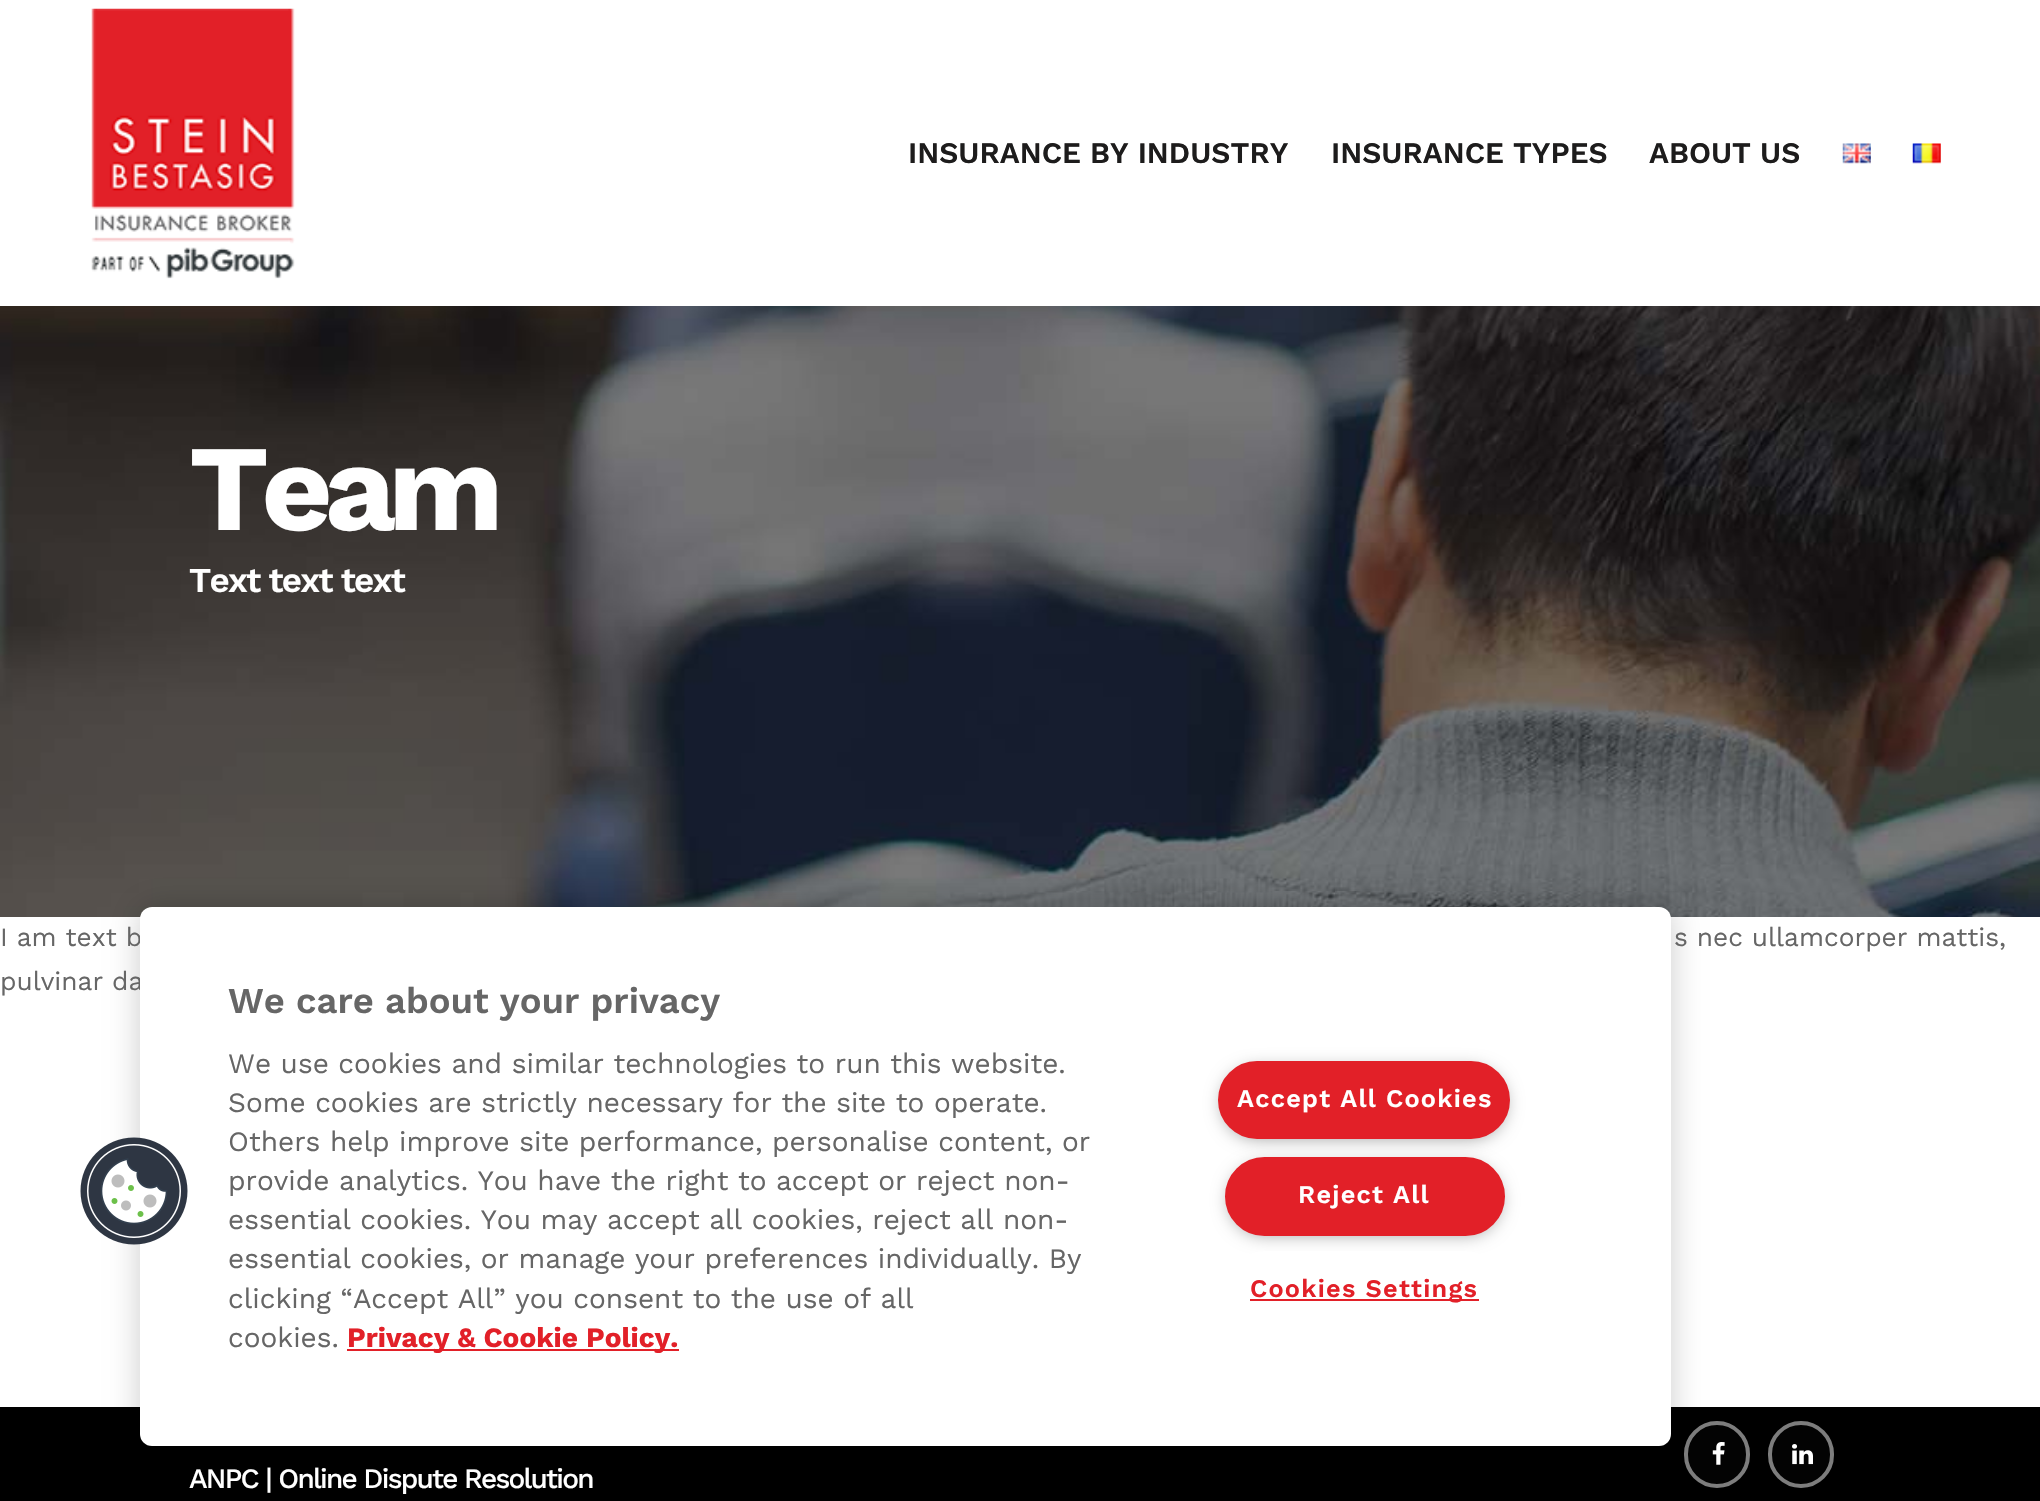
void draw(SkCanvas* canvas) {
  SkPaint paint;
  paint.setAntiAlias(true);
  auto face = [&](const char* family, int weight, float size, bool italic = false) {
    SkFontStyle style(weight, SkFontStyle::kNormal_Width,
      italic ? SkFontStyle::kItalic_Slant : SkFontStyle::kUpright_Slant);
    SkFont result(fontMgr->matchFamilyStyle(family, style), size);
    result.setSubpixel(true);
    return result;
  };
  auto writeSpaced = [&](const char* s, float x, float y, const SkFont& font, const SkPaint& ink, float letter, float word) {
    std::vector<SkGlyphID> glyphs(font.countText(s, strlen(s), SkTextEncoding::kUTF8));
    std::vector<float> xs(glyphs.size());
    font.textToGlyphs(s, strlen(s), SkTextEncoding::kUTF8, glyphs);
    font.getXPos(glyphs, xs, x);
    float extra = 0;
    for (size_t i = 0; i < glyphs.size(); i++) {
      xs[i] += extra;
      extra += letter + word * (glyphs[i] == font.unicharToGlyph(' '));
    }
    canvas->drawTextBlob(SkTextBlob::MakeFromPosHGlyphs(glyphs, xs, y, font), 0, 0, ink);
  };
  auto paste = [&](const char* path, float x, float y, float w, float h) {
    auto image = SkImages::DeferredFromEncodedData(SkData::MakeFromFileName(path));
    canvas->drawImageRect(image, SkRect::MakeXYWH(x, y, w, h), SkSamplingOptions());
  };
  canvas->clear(0xffffffff);
  paste("img/1.png", 91, 8, 204, 271);
  paste("img/2.png", 1842, 143, 29, 21);
  paste("img/3.png", 1912, 143, 29, 21);
  paste("img/4.png", 0, 306, 2040, 611);
  paint.setColor(0xff000000);
  canvas->drawRect(SkRect::MakeXYWH(0, 1407, 2040, 94), paint);
  paint.setColor(0xff030303);
  canvas->drawRoundRect(SkRect::MakeXYWH(1686, 1423, 62, 63), 31, 31, paint);
  paint.setStroke(true);
  paint.setStrokeWidth(4);
  paint.setColor(0xff7d7d7d);
  canvas->drawRoundRect(SkRect::MakeXYWH(1686, 1423, 62, 63), 31, 31, paint);
  paste("img/5.png", 1712, 1442, 13, 23);
  paint.setStroke(false);
  paint.setColor(0xff030303);
  canvas->drawRoundRect(SkRect::MakeXYWH(1770, 1423, 62, 63), 31, 31, paint);
  paint.setStroke(true);
  paint.setColor(0xff7d7d7d);
  canvas->drawRoundRect(SkRect::MakeXYWH(1770, 1423, 62, 63), 31, 31, paint);
  paste("img/6.png", 1792, 1444, 21, 21);
  paint.setStroke(false);
  paint.setColor(0x33000000);
  paint.setMaskFilter(SkMaskFilter::MakeBlur(kNormal_SkBlurStyle, 16));
  canvas->drawRoundRect(SkRect::MakeXYWH(140, 907, 1531, 539), 12, 12, paint);
  paint.setMaskFilter(nullptr);
  auto f0 = face("Work Sans", 600, 29.75f);
  paint.setColor(0xff1d1c1c);
  {
    const struct { const char* s; float x, y; } items[] = {
      {"INSURANCE BY INDUSTRY", 908, 163},
      {"INSURANCE TYPES", 1331, 163},
      {"ABOUT US", 1649, 163},
    };
    for (auto [s, x, y] : items) {
      canvas->drawString(s, x, y, f0, paint);
    }
  }
  auto f1 = face("Work Sans", 700, 122.5f);
  paint.setColor(0xffffffff);
  writeSpaced("Team", 189, 530, f1, paint, -7.5f, 0);
  auto f2 = face("Work Sans", 600, 35);
  writeSpaced("Text text text", 189, 592, f2, paint, -1.75f, 0);
  auto f3 = face("Work Sans", 400, 26.25f);
  paint.setColor(0xff666666);
  {
    const struct { const char* s; float x, y; } items[] = {
      {"I am text b", 0, 946},
      {"s nec ullamcorper mattis,", 1674, 946},
      {"pulvinar da", 0, 990},
    };
    for (auto [s, x, y] : items) {
      canvas->drawString(s, x, y, f3, paint);
    }
  }
  auto f4 = face("Work Sans", 500, 28);
  paint.setColor(0xffffffff);
  writeSpaced("ANPC | Online Dispute Resolution", 189, 1488, f4, paint, -1.75f, 0);
  canvas->drawRoundRect(SkRect::MakeXYWH(140, 907, 1531, 539), 12, 12, paint);
  paste("img/7.png", 80, 1137, 108, 108);
  auto f5 = face("Work Sans", 600, 36.4f);
  paint.setColor(0xff666666);
  canvas->drawString("We care about your privacy", 228, 1013, f5, paint);
  auto f6 = face("Work Sans", 400, 28);
  {
    const struct { const char* s; float x, y; } items[] = {
      {"We use cookies and similar technologies to run this website.", 228, 1073},
      {"Some cookies are strictly necessary for the site to operate.", 228, 1112},
      {"Others help improve site performance, personalise content, or", 228, 1151},
      {"provide analytics. You have the right to accept or reject non-", 228, 1190},
      {"essential cookies. You may accept all cookies, reject all non-", 228, 1229},
      {"essential cookies, or manage your preferences individually. By", 228, 1268},
      {"clicking “Accept All” you consent to the use of all", 228, 1308},
      {"cookies.", 228, 1347},
    };
    for (auto [s, x, y] : items) {
      canvas->drawString(s, x, y, f6, paint);
    }
  }
  paint.setColor(0xffe22028);
  canvas->drawRect(SkRect::MakeXYWH(347, 1349, 332, 2), paint);
  auto f7 = face("Work Sans", 700, 28);
  canvas->drawString("Privacy & Cookie Policy.", 347, 1347, f7, paint);
  paint.setColor(0xff999999);
  paint.setMaskFilter(SkMaskFilter::MakeBlur(kNormal_SkBlurStyle, 9));
  canvas->drawRoundRect(SkRect::MakeXYWH(1223, 1069, 282, 69), 34.5f, 34.5f, paint);
  paint.setMaskFilter(nullptr);
  paint.setColor(0xffe22028);
  canvas->drawRoundRect(SkRect::MakeXYWH(1219, 1062, 290, 76), 38, 38, paint);
  paint.setStroke(true);
  paint.setStrokeWidth(2);
  canvas->drawRoundRect(SkRect::MakeXYWH(1219, 1062, 290, 76), 38, 38, paint);
  auto f8 = face("Work Sans", 600, 25.25f);
  paint.setStroke(false);
  paint.setColor(0xffffffff);
  writeSpaced("Accept All Cookies", 1237, 1107, f8, paint, 1.25f, 0);
  paint.setColor(0xff999999);
  paint.setMaskFilter(SkMaskFilter::MakeBlur(kNormal_SkBlurStyle, 9));
  canvas->drawRoundRect(SkRect::MakeXYWH(1230, 1166, 270, 68), 34, 34, paint);
  paint.setMaskFilter(nullptr);
  paint.setColor(0xffe22028);
  canvas->drawRoundRect(SkRect::MakeXYWH(1226, 1158, 278, 77), 38.5f, 38.5f, paint);
  paint.setStroke(true);
  canvas->drawRoundRect(SkRect::MakeXYWH(1226, 1158, 278, 77), 38.5f, 38.5f, paint);
  paint.setStroke(false);
  paint.setColor(0xffffffff);
  writeSpaced("Reject All", 1298, 1203, f8, paint, 1.25f, 0);
  canvas->drawRoundRect(SkRect::MakeXYWH(1225, 1251, 280, 76), 38, 38, paint);
  paint.setColor(0xffe22028);
  canvas->drawRect(SkRect::MakeXYWH(1250, 1299, 229, 2), paint);
  writeSpaced("Cookies Settings", 1250, 1297, f8, paint, 1.25f, 0);
}
